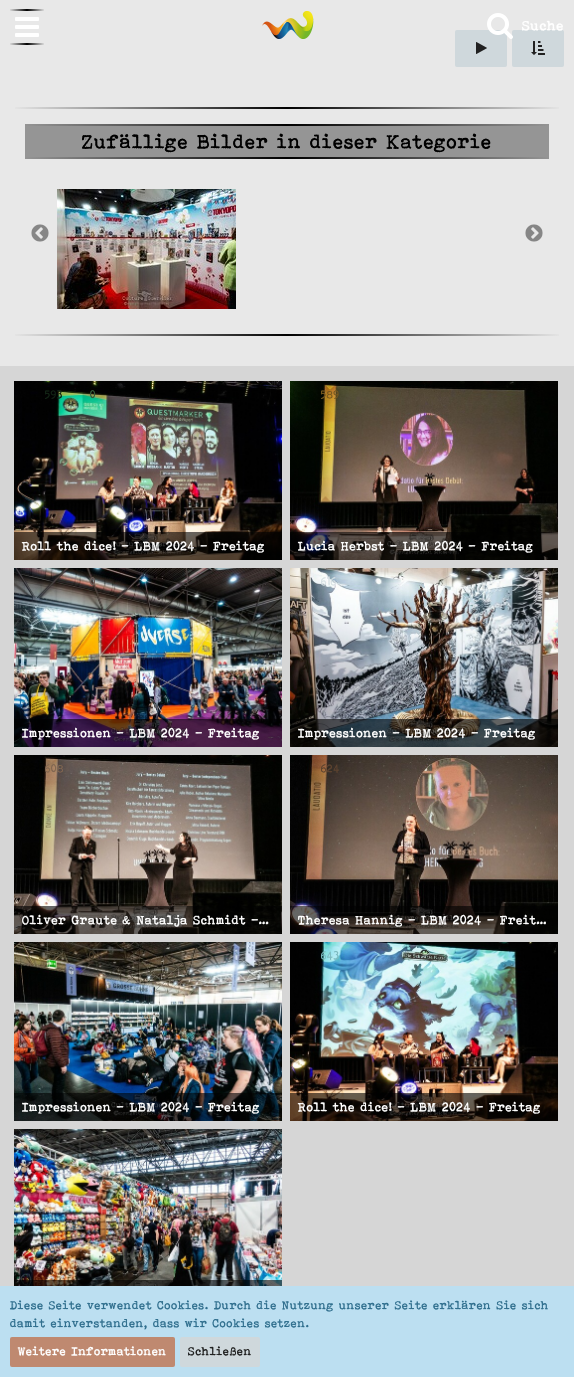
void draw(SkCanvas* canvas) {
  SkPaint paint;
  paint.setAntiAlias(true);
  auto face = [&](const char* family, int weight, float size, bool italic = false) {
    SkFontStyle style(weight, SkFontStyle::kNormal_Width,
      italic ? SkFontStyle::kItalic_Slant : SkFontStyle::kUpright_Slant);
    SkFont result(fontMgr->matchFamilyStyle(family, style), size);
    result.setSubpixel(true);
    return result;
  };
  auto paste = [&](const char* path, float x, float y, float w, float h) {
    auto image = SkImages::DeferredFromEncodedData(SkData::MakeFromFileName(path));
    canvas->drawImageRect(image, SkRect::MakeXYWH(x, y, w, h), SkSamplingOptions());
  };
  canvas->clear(0xffe8e8e8);
  paste("img/1.png", 262, 11, 52, 28);
  paste("img/2.png", 10, 9, 34, 36);
  paste("img/3.png", 15, 17, 24, 20);
  paint.setColor(0xffcfd8dc);
  canvas->drawRoundRect(SkRect::MakeXYWH(455, 30, 52, 37), 2, 2, paint);
  canvas->drawRoundRect(SkRect::MakeXYWH(512, 30, 52, 37), 2, 2, paint);
  paste("img/4.png", 487, 13, 26, 26);
  paste("img/5.png", 476, 42, 11, 12);
  paste("img/6.png", 531, 41, 14, 14);
  paste("img/7.png", 15, 107, 544, 229);
  paint.setColor(0xff959595);
  canvas->drawRect(SkRect::MakeXYWH(25, 126, 524, 31), paint);
  paste("img/8.png", 25, 124, 524, 35);
  paste("img/9.png", 31, 224, 18, 18);
  paste("img/10.png", 57, 189, 179, 120);
  paste("img/11.png", 525, 224, 18, 18);
  paint.setColor(0xffd6d6d6);
  canvas->drawRect(SkRect::MakeXYWH(0, 366, 574, 920), paint);
  paste("img/12.png", 14, 381, 268, 179);
  paint.setColor(0x99000000);
  canvas->drawRect(SkRect::MakeXYWH(14, 532, 268, 28), paint);
  paste("img/13.png", 290, 381, 268, 179);
  canvas->drawRect(SkRect::MakeXYWH(290, 532, 268, 28), paint);
  paste("img/14.png", 14, 568, 268, 179);
  canvas->drawRect(SkRect::MakeXYWH(14, 719, 268, 28), paint);
  paste("img/15.png", 290, 568, 268, 179);
  canvas->drawRect(SkRect::MakeXYWH(290, 719, 268, 28), paint);
  paste("img/16.png", 14, 755, 268, 179);
  canvas->drawRect(SkRect::MakeXYWH(14, 906, 268, 28), paint);
  paste("img/17.png", 290, 755, 268, 179);
  canvas->drawRect(SkRect::MakeXYWH(290, 906, 268, 28), paint);
  paste("img/18.png", 14, 942, 268, 179);
  canvas->drawRect(SkRect::MakeXYWH(14, 1093, 268, 28), paint);
  paste("img/19.png", 290, 942, 268, 179);
  canvas->drawRect(SkRect::MakeXYWH(290, 1093, 268, 28), paint);
  paste("img/20.png", 14, 1129, 268, 157);
  canvas->drawRect(SkRect::MakeXYWH(14, 1280, 268, 6), paint);
  paint.setColor(0xffbcdff1);
  canvas->drawRect(SkRect::MakeXYWH(0, 1286, 574, 91), paint);
  paint.setColor(0xffbf8970);
  canvas->drawRoundRect(SkRect::MakeXYWH(10, 1337, 165, 30), 2, 2, paint);
  paint.setColor(0xffcfd8dc);
  canvas->drawRoundRect(SkRect::MakeXYWH(180, 1337, 80, 30), 2, 2, paint);
  auto f0 = face("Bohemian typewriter", 400, 14);
  paint.setColor(0xffffffff);
  canvas->drawString("Suche", 522, 30, f0, paint);
  auto f1 = face("Bohemian typewriter", 400, 20);
  paint.setColor(0xff000000);
  canvas->drawString("Zufällige Bilder in dieser Kategorie", 82, 148, f1, paint);
  auto f2 = face("Bohemian typewriter", 400, 11);
  paint.setColor(0xff112314);
  canvas->drawString("593", 45, 398, f2, paint);
  paint.setColor(0xff335b37);
  canvas->drawString("0", 90, 398, f2, paint);
  auto f3 = face("Bohemian typewriter", 400, 12.6f);
  paint.setColor(0xffffffff);
  canvas->drawString("Roll the dice! - LBM 2024 - Freitag", 22, 550, f3, paint);
  paint.setColor(0xff75561d);
  canvas->drawString("589", 321, 398, f2, paint);
  paint.setColor(0xffffffff);
  canvas->drawString("Lucia Herbst - LBM 2024 - Freitag", 298, 550, f3, paint);
  paint.setColor(0xff6c5d58);
  canvas->drawString("0", 90, 585, f2, paint);
  paint.setColor(0xffffffff);
  canvas->drawString("Impressionen - LBM 2024 - Freitag", 22, 737, f3, paint);
  paint.setColor(0xffd8e1e5);
  canvas->drawString("616", 321, 585, f2, paint);
  paint.setColor(0xffffffff);
  canvas->drawString("Impressionen - LBM 2024 - Freitag", 298, 737, f3, paint);
  paint.setColor(0xff816650);
  canvas->drawString("608", 45, 772, f2, paint);
  paint.setColor(0xffffffff);
  canvas->drawString("Oliver Graute & Natalja Schmidt -…", 22, 924, f3, paint);
  paint.setColor(0xff5c422e);
  canvas->drawString("624", 321, 772, f2, paint);
  paint.setColor(0xffffffff);
  canvas->drawString("Theresa Hannig - LBM 2024 - Freit…", 298, 924, f3, paint);
  paint.setColor(0xff433e2d);
  canvas->drawString("559", 45, 959, f2, paint);
  paint.setColor(0xff3d3425);
  canvas->drawString("0", 89, 959, f2, paint);
  paint.setColor(0xffffffff);
  canvas->drawString("Impressionen - LBM 2024 - Freitag", 22, 1111, f3, paint);
  paint.setColor(0xff7cbac0);
  canvas->drawString("643", 321, 959, f2, paint);
  paint.setColor(0xffffffff);
  canvas->drawString("Roll the dice! - LBM 2024 - Freitag", 298, 1111, f3, paint);
  auto f4 = face("Bohemian typewriter", 400, 12);
  paint.setColor(0xff31708f);
  canvas->drawString("Diese Seite verwendet Cookies. Durch die Nutzung unserer Seite erklären Sie sich", 10, 1309, f4, paint);
  canvas->drawString("damit einverstanden, dass wir Cookies setzen.", 10, 1327, f4, paint);
  paint.setColor(0xffffffff);
  canvas->drawString("Weitere Informationen", 18, 1355, f4, paint);
  paint.setColor(0xff212121);
  canvas->drawString("Schließen", 188, 1355, f4, paint);
}
